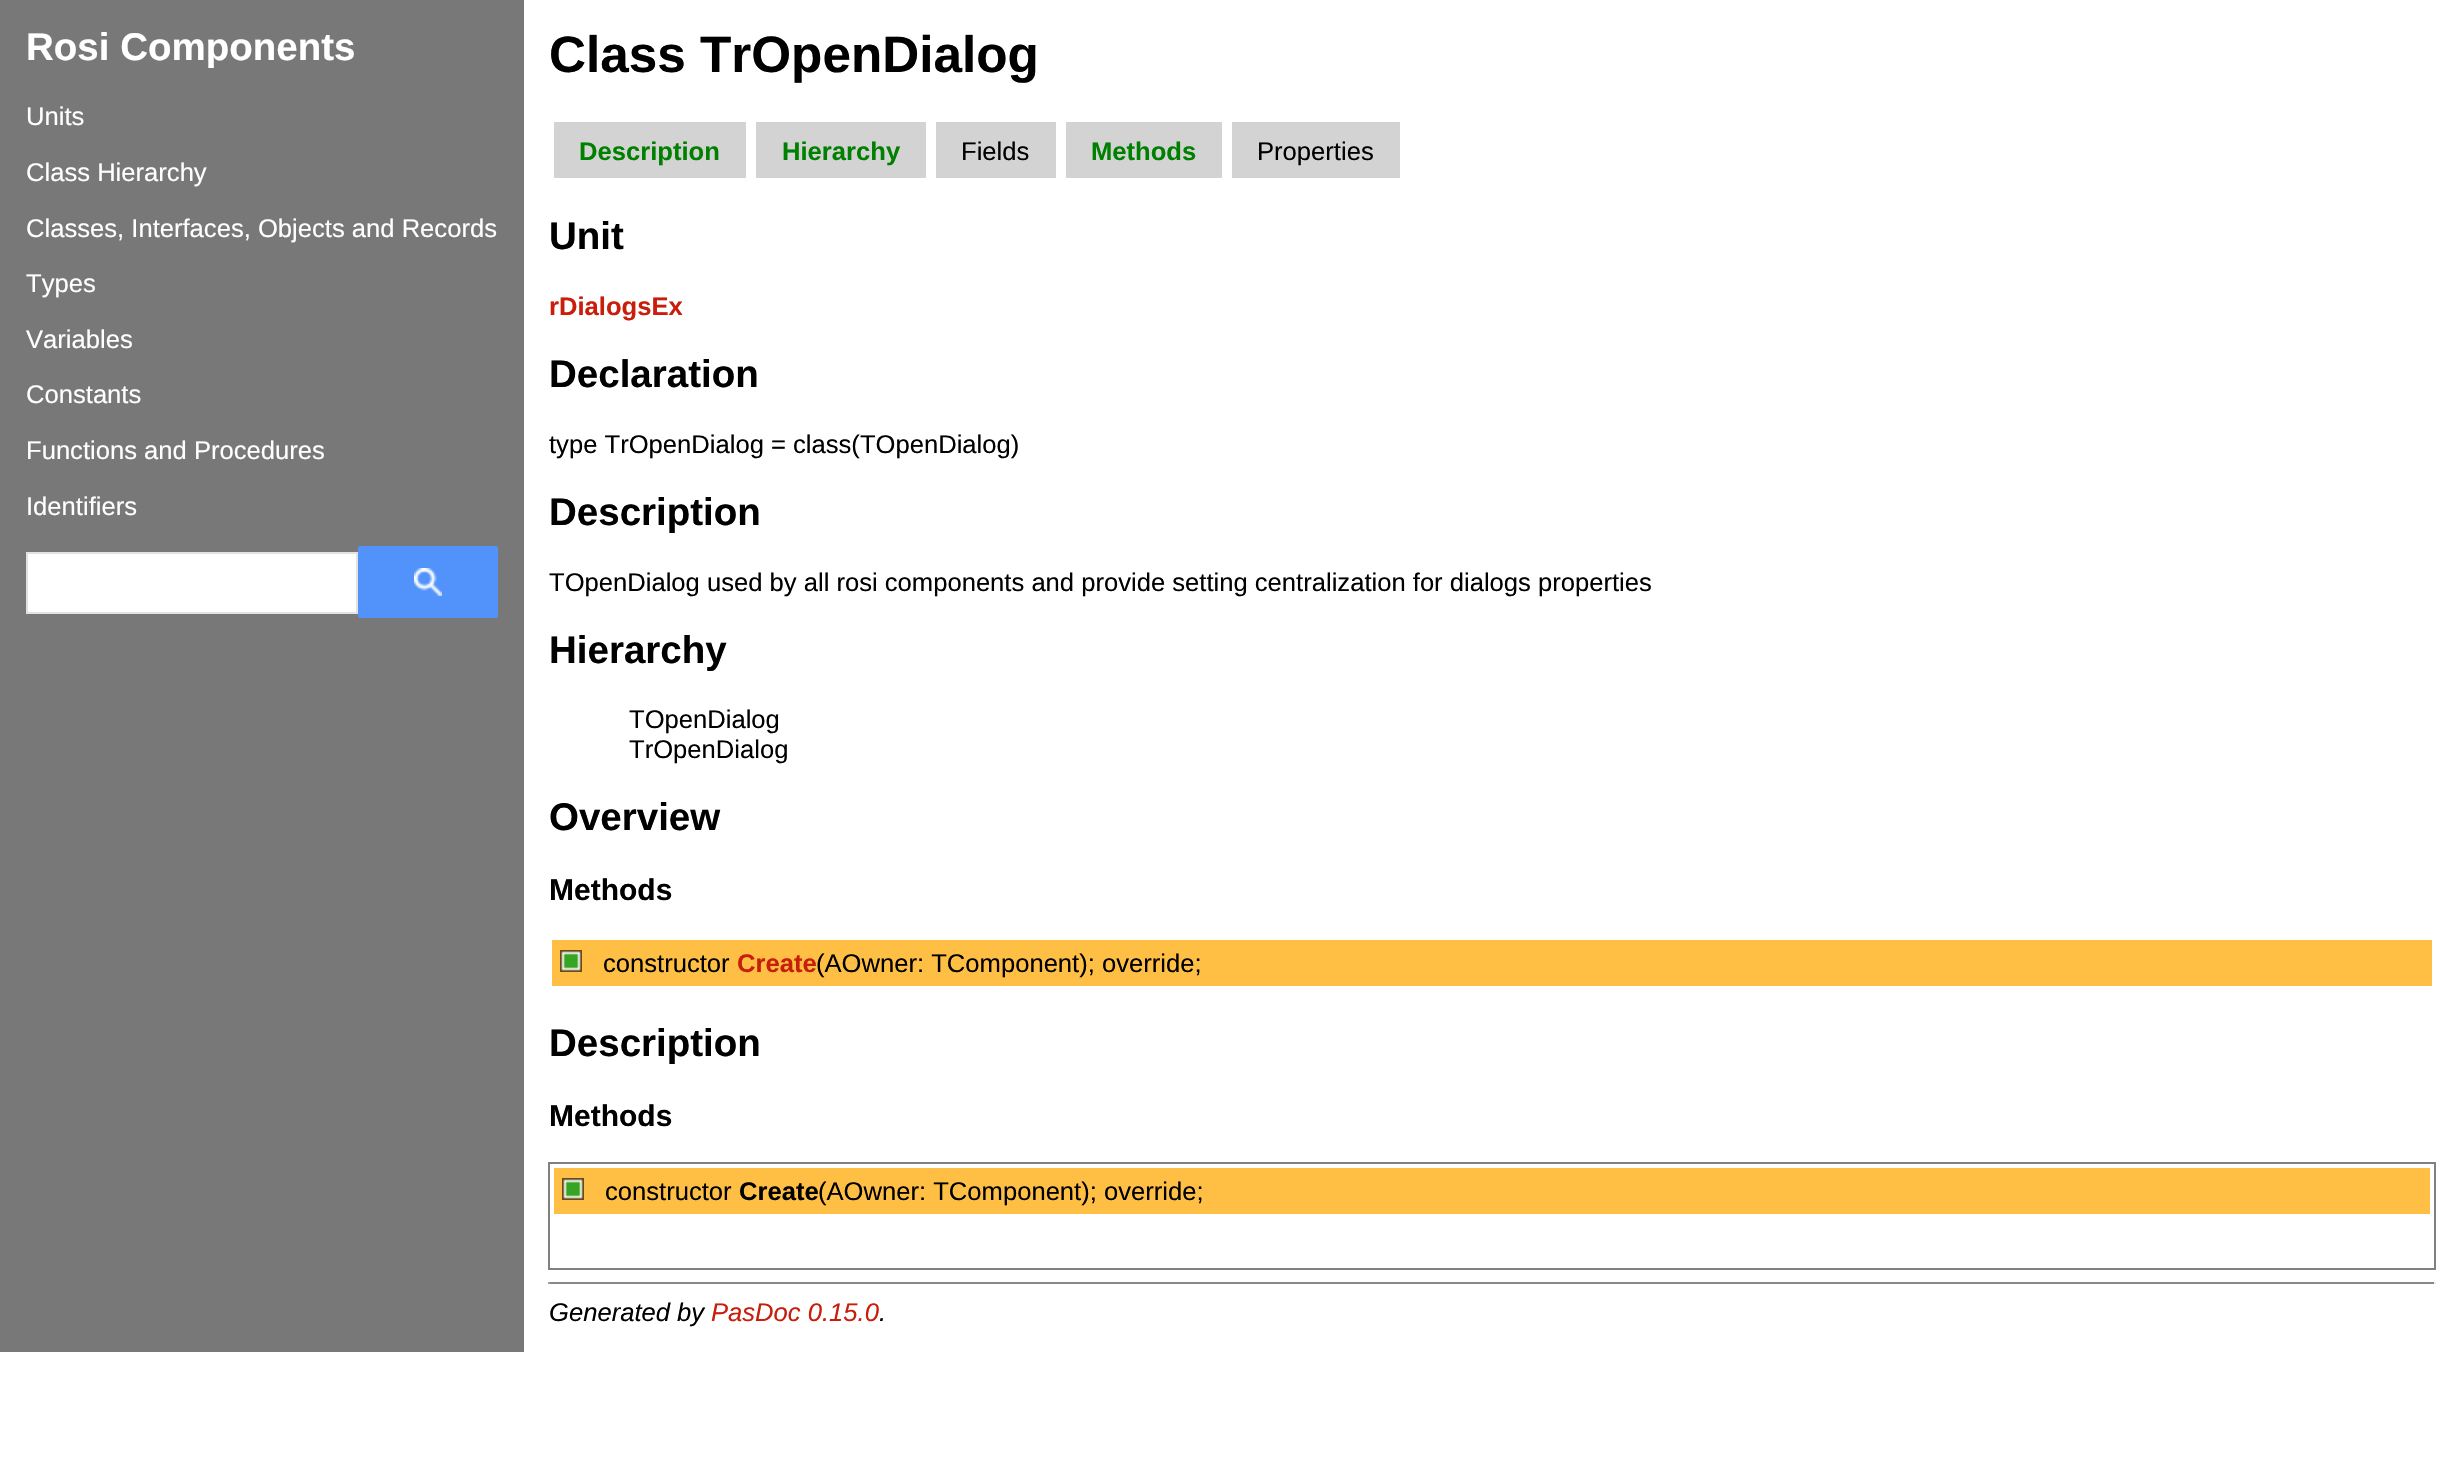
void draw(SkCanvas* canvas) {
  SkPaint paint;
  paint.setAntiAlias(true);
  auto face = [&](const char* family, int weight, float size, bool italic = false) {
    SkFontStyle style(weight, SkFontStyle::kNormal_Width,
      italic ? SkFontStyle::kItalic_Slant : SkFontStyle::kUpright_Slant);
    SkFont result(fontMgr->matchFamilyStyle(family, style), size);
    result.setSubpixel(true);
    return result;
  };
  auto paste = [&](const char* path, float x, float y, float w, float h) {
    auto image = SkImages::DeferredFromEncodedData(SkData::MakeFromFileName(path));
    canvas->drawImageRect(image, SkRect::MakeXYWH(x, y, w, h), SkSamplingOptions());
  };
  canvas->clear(0xffffffff);
  paint.setColor(0xff787878);
  canvas->drawRect(SkRect::MakeXYWH(0, 0, 524, 1352), paint);
  paint.setColor(0xffffffff);
  canvas->drawRect(SkRect::MakeXYWH(27, 553, 330, 60), paint);
  paint.setStroke(true);
  paint.setStrokeWidth(2);
  paint.setColor(0xffe2e2e2);
  canvas->drawRect(SkRect::MakeXYWH(27, 553, 330, 60), paint);
  paint.setStroke(false);
  paint.setColor(0xff5193fb);
  canvas->drawRoundRect(SkRect::MakeXYWH(358, 546, 140, 72), 2, 2, paint);
  paste("img/1.png", 414, 568, 28, 28);
  {
    const struct { float x, y, w, h; SkColor color; } items[] = {
      {554, 122, 192, 56, 0xffd3d3d3},
      {756, 122, 170, 56, 0xffd3d3d3},
      {936, 122, 120, 56, 0xffd3d3d3},
      {1066, 122, 156, 56, 0xffd3d3d3},
      {1232, 122, 168, 56, 0xffd3d3d3},
      {552, 940, 1880, 46, 0xffffbf44},
    };
    for (auto [x, y, w, h, color] : items) {
      paint.setColor(color);
      canvas->drawRect(SkRect::MakeXYWH(x, y, w, h), paint);
    }
  }
  paste("img/2.png", 560, 950, 22, 22);
  paint.setStroke(true);
  paint.setColor(0xff808080);
  canvas->drawRect(SkRect::MakeXYWH(549, 1163, 1886, 106), paint);
  paint.setStroke(false);
  paint.setColor(0xffffbf44);
  canvas->drawRect(SkRect::MakeXYWH(554, 1168, 1876, 46), paint);
  paste("img/2.png", 562, 1178, 22, 22);
  {
    const struct { float x, y, w, h; SkColor color; } items[] = {
      {548, 1282, 1888, 2, 0xff888888},
      {2434, 1282, 2, 2, 0xffeeeeee},
      {548, 1282, 2, 2, 0xff9f9f9f},
    };
    for (auto [x, y, w, h, color] : items) {
      paint.setColor(color);
      canvas->drawRect(SkRect::MakeXYWH(x, y, w, h), paint);
    }
  }
  auto f0 = face("Liberation Sans", 700, 38.5f);
  paint.setColor(0xffffffff);
  canvas->drawString("Rosi Components", 26, 60, f0, paint);
  auto f1 = face("Liberation Sans", 400, 25.6f);
  {
    const struct { const char* s; float x, y; } items[] = {
      {"Units", 26, 125},
      {"Class Hierarchy", 26, 181},
      {"Classes, Interfaces, Objects and Records", 26, 237},
      {"Types", 26, 292},
      {"Variables", 26, 348},
      {"Constants", 26, 403},
      {"Functions and Procedures", 26, 459},
      {"Identifiers", 26, 515},
    };
    for (auto [s, x, y] : items) {
      canvas->drawString(s, x, y, f1, paint);
    }
  }
  auto f2 = face("Liberation Sans", 700, 51.25f);
  paint.setColor(0xff000000);
  canvas->drawString("Class TrOpenDialog", 549, 72, f2, paint);
  auto f3 = face("Liberation Sans", 700, 25.6f);
  paint.setColor(0xff008000);
  canvas->drawString("Description", 579, 160, f3, paint);
  canvas->drawString("Hierarchy", 782, 160, f3, paint);
  paint.setColor(0xff000000);
  canvas->drawString("Fields", 961, 160, f1, paint);
  paint.setColor(0xff008000);
  canvas->drawString("Methods", 1091, 160, f3, paint);
  paint.setColor(0xff000000);
  canvas->drawString("Properties", 1257, 160, f1, paint);
  canvas->drawString("Unit", 549, 249, f0, paint);
  paint.setColor(0xffc91e0c);
  canvas->drawString("rDialogsEx", 549, 315, f3, paint);
  paint.setColor(0xff000000);
  canvas->drawString("Declaration", 549, 387, f0, paint);
  canvas->drawString("type TrOpenDialog = class(TOpenDialog)", 549, 453, f1, paint);
  canvas->drawString("Description", 549, 525, f0, paint);
  canvas->drawString("TOpenDialog used by all rosi components and provide setting centralization for dialogs properties", 549, 591, f1, paint);
  canvas->drawString("Hierarchy", 549, 663, f0, paint);
  canvas->drawString("TOpenDialog", 629, 728, f1, paint);
  canvas->drawString("TrOpenDialog", 629, 758, f1, paint);
  canvas->drawString("Overview", 549, 830, f0, paint);
  auto f4 = face("Liberation Sans", 700, 30);
  canvas->drawString("Methods", 549, 900, f4, paint);
  canvas->drawString("constructor", 603, 972, f1, paint);
  paint.setColor(0xffc91e0c);
  canvas->drawString("Create", 737, 972, f3, paint);
  paint.setColor(0xff000000);
  canvas->drawString("(AOwner: TComponent); override;", 816, 972, f1, paint);
  canvas->drawString("Description", 549, 1056, f0, paint);
  canvas->drawString("Methods", 549, 1126, f4, paint);
  canvas->drawString("constructor", 605, 1200, f1, paint);
  canvas->drawString("Create", 739, 1200, f3, paint);
  canvas->drawString("(AOwner: TComponent); override;", 818, 1200, f1, paint);
  auto f5 = face("Liberation Sans", 400, 25.6f, true);
  canvas->drawString("Generated by", 549, 1321, f5, paint);
  paint.setColor(0xffc91e0c);
  canvas->drawString("PasDoc 0.15.0", 711, 1321, f5, paint);
  paint.setColor(0xff000000);
  canvas->drawString(".", 879, 1321, f5, paint);
}
